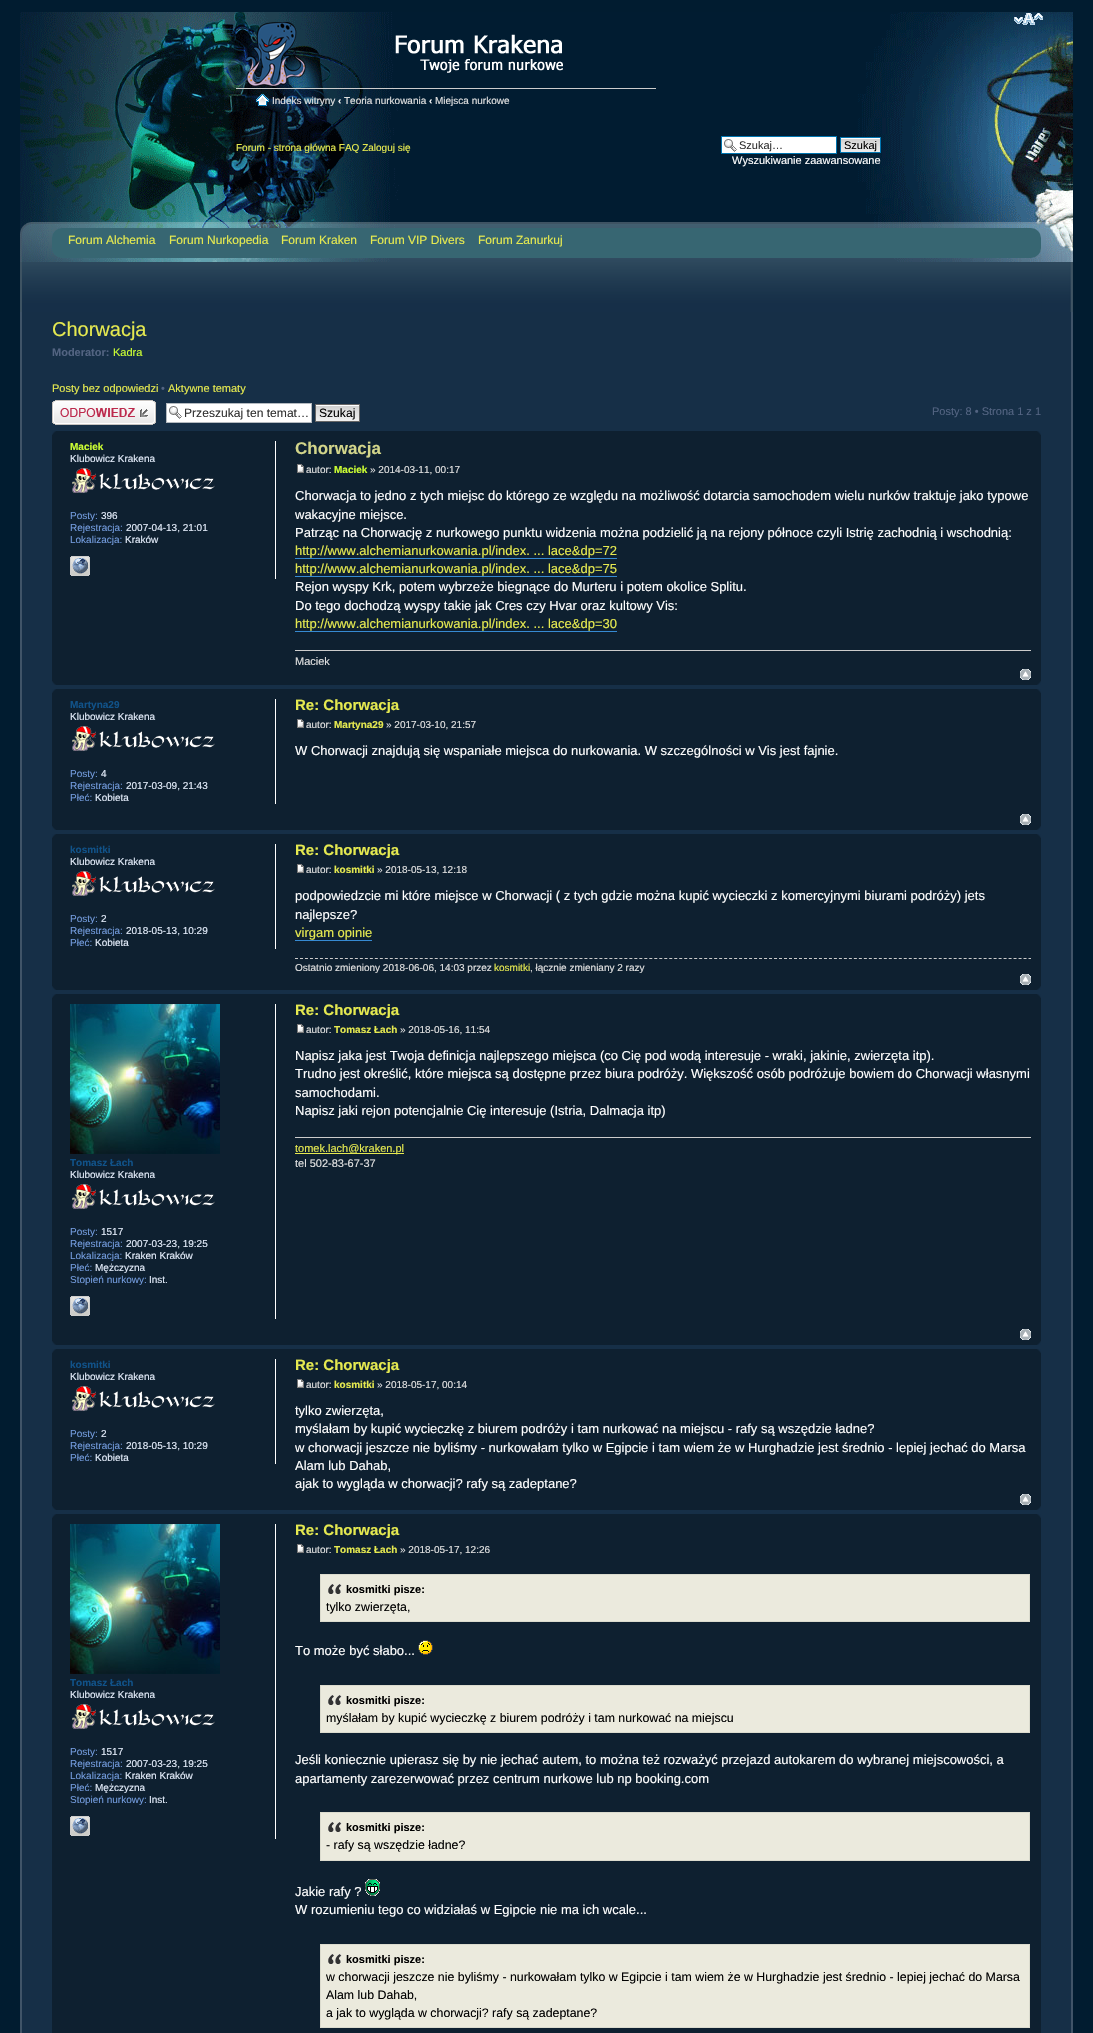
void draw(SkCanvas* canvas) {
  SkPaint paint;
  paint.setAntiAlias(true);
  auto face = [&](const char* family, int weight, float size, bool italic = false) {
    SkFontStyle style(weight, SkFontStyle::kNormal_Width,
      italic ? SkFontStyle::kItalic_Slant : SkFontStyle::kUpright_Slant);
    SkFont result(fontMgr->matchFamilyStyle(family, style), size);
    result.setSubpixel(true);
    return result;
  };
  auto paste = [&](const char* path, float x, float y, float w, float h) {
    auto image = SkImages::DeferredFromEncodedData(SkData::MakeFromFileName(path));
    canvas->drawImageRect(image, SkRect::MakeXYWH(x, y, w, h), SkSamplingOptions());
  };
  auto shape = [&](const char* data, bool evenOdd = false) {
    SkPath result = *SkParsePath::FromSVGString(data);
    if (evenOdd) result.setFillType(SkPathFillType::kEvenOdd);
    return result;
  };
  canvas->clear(0xff011c30);
  paste("img/2.png", 20, 12, 1053, 250);
  paste("img/1.png", 1014, 13, 29, 12);
  paste("img/3.png", 246, 22, 317, 64);
  paint.setColor(0xffcccccc);
  canvas->drawRect(SkRect::MakeXYWH(236, 88, 420, 1), paint);
  paste("img/4.png", 256, 94, 13, 12);
  paint.setColor(0xffffffff);
  canvas->drawRect(SkRect::MakeXYWH(722, 137, 114, 16), paint);
  paste("img/5.png", 724, 139, 13, 13);
  paint.setStroke(true);
  paint.setStrokeWidth(1);
  paint.setColor(0xff0075b0);
  canvas->drawRect(SkRect::MakeXYWH(721.5f, 136.5f, 115, 17), paint);
  paste("img/6.png", 841, 138, 39, 14);
  canvas->drawRect(SkRect::MakeXYWH(840.5f, 137.5f, 40, 15), paint);
  paint.setStroke(false);
  paint.setColor(0xff162f47);
  canvas->drawRect(SkRect::MakeXYWH(22, 312, 1049, 1721), paint);
  paint.setColor(0xff405468);
  canvas->drawPath(shape("M1073 312V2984L1071 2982V312Z"), paint);
  canvas->drawPath(shape("M20 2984V312H22V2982Z"), paint);
  paste("img/7.png", 52, 222, 989, 90);
  paste("img/8.png", 20, 222, 32, 90);
  paste("img/9.png", 1041, 222, 32, 90);
  paint.setColor(0xff376672);
  canvas->drawRoundRect(SkRect::MakeXYWH(52, 228, 989, 30), 10, 10, paint);
  paste("img/10.png", 52, 400, 104, 25);
  paint.setColor(0xffffffff);
  canvas->drawRect(SkRect::MakeXYWH(167, 404, 144, 18), paint);
  paste("img/5.png", 169, 406, 13, 13);
  paint.setStroke(true);
  paint.setColor(0xffb4bac0);
  canvas->drawRect(SkRect::MakeXYWH(166.5f, 403.5f, 145, 19), paint);
  paste("img/11.png", 316, 405, 43, 16);
  paint.setColor(0xff666666);
  canvas->drawRect(SkRect::MakeXYWH(315.5f, 404.5f, 44, 17), paint);
  paint.setStroke(false);
  paint.setColor(0xff0e2030);
  canvas->drawRect(SkRect::MakeXYWH(52, 431, 989, 254), paint);
  paste("img/12.png", 52, 431, 4, 4);
  paste("img/13.png", 1037, 431, 4, 4);
  paint.setColor(0xffffffff);
  canvas->drawRect(SkRect::MakeXYWH(275, 441, 1, 138), paint);
  paste("img/14.png", 72, 468, 143, 25);
  paste("img/15.png", 70, 556, 20, 20);
  paste("img/16.png", 297, 464, 7, 9);
  {
    const struct { float x, y, w, h; SkColor color; } items[] = {
      {295, 558, 322, 1, 0xff368ad2},
      {295, 576, 322, 1, 0xff368ad2},
      {295, 631, 322, 1, 0xff368ad2},
      {295, 650, 736, 1, 0xffcccccc},
    };
    for (auto [x, y, w, h, color] : items) {
      paint.setColor(color);
      canvas->drawRect(SkRect::MakeXYWH(x, y, w, h), paint);
    }
  }
  paste("img/17.png", 1020, 669, 11, 11);
  paste("img/18.png", 52, 681, 4, 4);
  paste("img/19.png", 1037, 681, 4, 4);
  paint.setColor(0xff0e2030);
  canvas->drawRect(SkRect::MakeXYWH(52, 689, 989, 141), paint);
  paste("img/12.png", 52, 689, 4, 4);
  paste("img/13.png", 1037, 689, 4, 4);
  paint.setColor(0xffffffff);
  canvas->drawRect(SkRect::MakeXYWH(275, 699, 1, 105), paint);
  paste("img/14.png", 72, 726, 143, 25);
  paste("img/16.png", 297, 719, 7, 9);
  paste("img/17.png", 1020, 814, 11, 11);
  paste("img/18.png", 52, 826, 4, 4);
  paste("img/19.png", 1037, 826, 4, 4);
  paint.setColor(0xff0e2030);
  canvas->drawRect(SkRect::MakeXYWH(52, 834, 989, 156), paint);
  paste("img/12.png", 52, 834, 4, 4);
  paste("img/13.png", 1037, 834, 4, 4);
  paint.setColor(0xffffffff);
  canvas->drawRect(SkRect::MakeXYWH(275, 844, 1, 105), paint);
  paste("img/14.png", 72, 871, 143, 25);
  paste("img/16.png", 297, 864, 7, 9);
  paint.setColor(0xff368ad2);
  canvas->drawRect(SkRect::MakeXYWH(295, 940, 77, 1), paint);
  paint.setStroke(true);
  paint.setColor(0xffcccccc);
  paint.setPathEffect(SkDashPathEffect::Make({{3, 1.99f}}, 0));
  canvas->drawPath(shape("M295 958.5H1031"), paint);
  paint.setPathEffect(nullptr);
  paste("img/17.png", 1020, 974, 11, 11);
  paste("img/18.png", 52, 986, 4, 4);
  paste("img/19.png", 1037, 986, 4, 4);
  paint.setStroke(false);
  paint.setColor(0xff0e2030);
  canvas->drawRect(SkRect::MakeXYWH(52, 994, 989, 351), paint);
  paste("img/12.png", 52, 994, 4, 4);
  paste("img/13.png", 1037, 994, 4, 4);
  paste("img/16.png", 297, 1024, 7, 9);
  {
    const struct { float x, y, w, h; SkColor color; } items[] = {
      {295, 1137, 736, 1, 0xffcccccc},
      {295, 1153, 109, 1, 0xffe5e950},
      {275, 1004, 1, 315, 0xffffffff},
    };
    for (auto [x, y, w, h, color] : items) {
      paint.setColor(color);
      canvas->drawRect(SkRect::MakeXYWH(x, y, w, h), paint);
    }
  }
  paste("img/20.png", 70, 1004, 150, 150);
  paste("img/14.png", 72, 1184, 143, 25);
  paste("img/15.png", 70, 1296, 20, 20);
  paste("img/17.png", 1020, 1329, 11, 11);
  paste("img/18.png", 52, 1341, 4, 4);
  paste("img/19.png", 1037, 1341, 4, 4);
  paint.setColor(0xff0e2030);
  canvas->drawRect(SkRect::MakeXYWH(52, 1349, 989, 161), paint);
  paste("img/12.png", 52, 1349, 4, 4);
  paste("img/13.png", 1037, 1349, 4, 4);
  paint.setColor(0xffffffff);
  canvas->drawRect(SkRect::MakeXYWH(275, 1359, 1, 105), paint);
  paste("img/14.png", 72, 1386, 143, 25);
  paste("img/16.png", 297, 1379, 7, 9);
  paste("img/17.png", 1020, 1494, 11, 11);
  paste("img/18.png", 52, 1506, 4, 4);
  paste("img/19.png", 1037, 1506, 4, 4);
  paint.setColor(0xff0e2030);
  canvas->drawRect(SkRect::MakeXYWH(52, 1514, 989, 519), paint);
  paste("img/12.png", 52, 1514, 4, 4);
  paste("img/13.png", 1037, 1514, 4, 4);
  paint.setColor(0xffffffff);
  canvas->drawRect(SkRect::MakeXYWH(275, 1524, 1, 315), paint);
  paste("img/20.png", 70, 1524, 150, 150);
  paste("img/14.png", 72, 1704, 143, 25);
  paste("img/15.png", 70, 1816, 20, 20);
  paste("img/16.png", 297, 1544, 7, 9);
  paint.setColor(0xffebeadd);
  canvas->drawRect(SkRect::MakeXYWH(321, 1575, 708, 46), paint);
  paste("img/21.png", 328, 1584, 14, 10);
  paint.setStroke(true);
  paint.setColor(0xffdbdbce);
  canvas->drawRect(SkRect::MakeXYWH(320.5f, 1574.5f, 709, 47), paint);
  paste("img/22.png", 418, 1640, 15, 15);
  paint.setStroke(false);
  paint.setColor(0xffebeadd);
  canvas->drawRect(SkRect::MakeXYWH(321, 1686, 708, 46), paint);
  paste("img/21.png", 328, 1695, 14, 10);
  paint.setStroke(true);
  paint.setColor(0xffdbdbce);
  canvas->drawRect(SkRect::MakeXYWH(320.5f, 1685.5f, 709, 47), paint);
  paint.setStroke(false);
  paint.setColor(0xffebeadd);
  canvas->drawRect(SkRect::MakeXYWH(321, 1813, 708, 47), paint);
  paste("img/21.png", 328, 1822, 14, 10);
  paint.setStroke(true);
  paint.setColor(0xffdbdbce);
  canvas->drawRect(SkRect::MakeXYWH(320.5f, 1812.5f, 709, 48), paint);
  paste("img/23.png", 365, 1879, 15, 17);
  paint.setStroke(false);
  paint.setColor(0xffebeadd);
  canvas->drawRect(SkRect::MakeXYWH(321, 1945, 708, 82), paint);
  paste("img/21.png", 328, 1954, 14, 10);
  paint.setStroke(true);
  paint.setColor(0xffdbdbce);
  canvas->drawRect(SkRect::MakeXYWH(320.5f, 1944.5f, 709, 83), paint);
  auto f0 = face("Liberation Sans", 400, 10);
  paint.setStroke(false);
  paint.setColor(0xffe0e0e0);
  canvas->drawString("Indeks witryny", 272, 104, f0, paint);
  auto f1 = face("Liberation Sans", 700, 10);
  paint.setColor(0xffffffff);
  canvas->drawString("‹", 338, 104, f1, paint);
  paint.setColor(0xffe0e0e0);
  canvas->drawString("Teoria nurkowania", 344, 104, f0, paint);
  paint.setColor(0xffffffff);
  canvas->drawString("‹", 429, 104, f1, paint);
  paint.setColor(0xffe0e0e0);
  canvas->drawString("Miejsca nurkowe", 435, 104, f0, paint);
  paint.setColor(0xffe5e950);
  canvas->drawString("Forum - strona główna FAQ Zaloguj się", 236, 151, f0, paint);
  auto f2 = face("Liberation Sans", 400, 11);
  paint.setColor(0xff333333);
  canvas->drawString("Szukaj…", 739, 149, f2, paint);
  paint.setColor(0xff000000);
  canvas->drawString("Szukaj", 844, 149, f2, paint);
  paint.setColor(0xffffffff);
  canvas->drawString("Wyszukiwanie zaawansowane", 732, 164, f2, paint);
  auto f3 = face("Liberation Sans", 400, 12);
  paint.setColor(0xffe5e950);
  {
    const struct { const char* s; float x, y; } items[] = {
      {"Forum Alchemia", 68, 244},
      {"Forum Nurkopedia", 169, 244},
      {"Forum Kraken", 281, 244},
      {"Forum VIP Divers", 370, 244},
      {"Forum Zanurkuj", 478, 244},
    };
    for (auto [s, x, y] : items) {
      canvas->drawString(s, x, y, f3, paint);
    }
  }
  auto f4 = face("Liberation Sans", 400, 20);
  canvas->drawString("Chorwacja", 52, 336, f4, paint);
  auto f5 = face("Liberation Sans", 700, 11);
  paint.setColor(0xff536482);
  canvas->drawString("Moderator:", 52, 356, f5, paint);
  paint.setColor(0xffccff33);
  canvas->drawString("Kadra", 113, 356, f2, paint);
  paint.setColor(0xffe5e950);
  canvas->drawString("Posty bez odpowiedzi", 52, 392, f2, paint);
  paint.setColor(0xff536482);
  canvas->drawString("•", 161, 392, f2, paint);
  paint.setColor(0xffe5e950);
  canvas->drawString("Aktywne tematy", 168, 392, f2, paint);
  auto f6 = face("Liberation Sans", 400, 12.1f);
  paint.setColor(0xff333333);
  canvas->drawString("Przeszukaj ten temat…", 184, 417, f6, paint);
  paint.setColor(0xff000000);
  canvas->drawString("Szukaj", 319, 417, f6, paint);
  paint.setColor(0xff536482);
  canvas->drawString("Posty: 8 • Strona 1 z 1", 932, 415, f2, paint);
  paint.setColor(0xffccff33);
  canvas->drawString("Maciek", 70, 450, f1, paint);
  paint.setColor(0xffe3ecfa);
  canvas->drawString("Klubowicz Krakena", 70, 462, f0, paint);
  paint.setColor(0xff739cde);
  canvas->drawString("Posty:", 70, 519, f0, paint);
  paint.setColor(0xffe3ecfa);
  canvas->drawString("396", 101, 519, f0, paint);
  paint.setColor(0xff739cde);
  canvas->drawString("Rejestracja:", 70, 531, f0, paint);
  paint.setColor(0xffe3ecfa);
  canvas->drawString("2007-04-13, 21:01", 126, 531, f0, paint);
  paint.setColor(0xff739cde);
  canvas->drawString("Lokalizacja:", 70, 543, f0, paint);
  paint.setColor(0xffe3ecfa);
  canvas->drawString("Kraków", 125, 543, f0, paint);
  auto f7 = face("Liberation Sans", 700, 17);
  paint.setColor(0xffd2d58a);
  canvas->drawString("Chorwacja", 295, 454, f7, paint);
  paint.setColor(0xffe0e0e0);
  canvas->drawString("autor:", 306, 473, f0, paint);
  paint.setColor(0xffccff33);
  canvas->drawString("Maciek", 334, 473, f1, paint);
  paint.setColor(0xffe0e0e0);
  canvas->drawString("» 2014-03-11, 00:17", 370, 473, f0, paint);
  auto f8 = face("Liberation Sans", 400, 13);
  paint.setColor(0xffffffff);
  {
    const struct { const char* s; float x, y; } items[] = {
      {"Chorwacja to jedno z tych miejsc do którego ze względu na możliwość dotarcia samochodem wielu nurków traktuje jako typowe", 295, 500},
      {"wakacyjne miejsce.", 295, 519},
      {"Patrząc na Chorwację z nurkowego punktu widzenia można podzielić ją na rejony północe czyli Istrię zachodnią i wschodnią:", 295, 537},
    };
    for (auto [s, x, y] : items) {
      canvas->drawString(s, x, y, f8, paint);
    }
  }
  paint.setColor(0xffe5e950);
  canvas->drawString("http://www.alchemianurkowania.pl/index. ... lace&dp=72", 295, 555, f8, paint);
  canvas->drawString("http://www.alchemianurkowania.pl/index. ... lace&dp=75", 295, 573, f8, paint);
  paint.setColor(0xffffffff);
  canvas->drawString("Rejon wyspy Krk, potem wybrzeże biegnące do Murteru i potem okolice Splitu.", 295, 591, f8, paint);
  canvas->drawString("Do tego dochodzą wyspy takie jak Cres czy Hvar oraz kultowy Vis:", 295, 610, f8, paint);
  paint.setColor(0xffe5e950);
  canvas->drawString("http://www.alchemianurkowania.pl/index. ... lace&dp=30", 295, 628, f8, paint);
  paint.setColor(0xffe0e0e0);
  canvas->drawString("Maciek", 295, 665, f2, paint);
  paint.setColor(0xff105289);
  canvas->drawString("Martyna29", 70, 708, f1, paint);
  paint.setColor(0xffe3ecfa);
  canvas->drawString("Klubowicz Krakena", 70, 720, f0, paint);
  paint.setColor(0xff739cde);
  canvas->drawString("Posty:", 70, 777, f0, paint);
  paint.setColor(0xffe3ecfa);
  canvas->drawString("4", 101, 777, f0, paint);
  paint.setColor(0xff739cde);
  canvas->drawString("Rejestracja:", 70, 789, f0, paint);
  paint.setColor(0xffe3ecfa);
  canvas->drawString("2017-03-09, 21:43", 126, 789, f0, paint);
  paint.setColor(0xff739cde);
  canvas->drawString("Płeć:", 70, 801, f0, paint);
  paint.setColor(0xffe3ecfa);
  canvas->drawString("Kobieta", 95, 801, f0, paint);
  auto f9 = face("Liberation Sans", 700, 15);
  paint.setColor(0xffe5e950);
  canvas->drawString("Re: Chorwacja", 295, 710, f9, paint);
  paint.setColor(0xffe0e0e0);
  canvas->drawString("autor:", 306, 728, f0, paint);
  paint.setColor(0xffe5e950);
  canvas->drawString("Martyna29", 334, 728, f1, paint);
  paint.setColor(0xffe0e0e0);
  canvas->drawString("» 2017-03-10, 21:57", 386, 728, f0, paint);
  paint.setColor(0xffffffff);
  canvas->drawString("W Chorwacji znajdują się wspaniałe miejsca do nurkowania. W szczególności w Vis jest fajnie.", 295, 755, f8, paint);
  paint.setColor(0xff105289);
  canvas->drawString("kosmitki", 70, 853, f1, paint);
  paint.setColor(0xffe3ecfa);
  canvas->drawString("Klubowicz Krakena", 70, 865, f0, paint);
  paint.setColor(0xff739cde);
  canvas->drawString("Posty:", 70, 922, f0, paint);
  paint.setColor(0xffe3ecfa);
  canvas->drawString("2", 101, 922, f0, paint);
  paint.setColor(0xff739cde);
  canvas->drawString("Rejestracja:", 70, 934, f0, paint);
  paint.setColor(0xffe3ecfa);
  canvas->drawString("2018-05-13, 10:29", 126, 934, f0, paint);
  paint.setColor(0xff739cde);
  canvas->drawString("Płeć:", 70, 946, f0, paint);
  paint.setColor(0xffe3ecfa);
  canvas->drawString("Kobieta", 95, 946, f0, paint);
  paint.setColor(0xffe5e950);
  canvas->drawString("Re: Chorwacja", 295, 855, f9, paint);
  paint.setColor(0xffe0e0e0);
  canvas->drawString("autor:", 306, 873, f0, paint);
  paint.setColor(0xffe5e950);
  canvas->drawString("kosmitki", 334, 873, f1, paint);
  paint.setColor(0xffe0e0e0);
  canvas->drawString("» 2018-05-13, 12:18", 377, 873, f0, paint);
  paint.setColor(0xffffffff);
  canvas->drawString("podpowiedzcie mi które miejsce w Chorwacji ( z tych gdzie można kupić wycieczki z komercyjnymi biurami podróży) jets", 295, 900, f8, paint);
  canvas->drawString("najlepsze?", 295, 919, f8, paint);
  paint.setColor(0xffe5e950);
  canvas->drawString("virgam opinie", 295, 937, f8, paint);
  paint.setColor(0xffe0e0e0);
  canvas->drawString("Ostatnio zmieniony 2018-06-06, 14:03 przez", 295, 971, f0, paint);
  paint.setColor(0xffe5e950);
  canvas->drawString("kosmitki", 494, 971, f0, paint);
  paint.setColor(0xffe0e0e0);
  canvas->drawString(", łącznie zmieniany 2 razy", 530, 971, f0, paint);
  paint.setColor(0xffe5e950);
  canvas->drawString("Re: Chorwacja", 295, 1015, f9, paint);
  paint.setColor(0xffe0e0e0);
  canvas->drawString("autor:", 306, 1033, f0, paint);
  paint.setColor(0xffe5e950);
  canvas->drawString("Tomasz Łach", 334, 1033, f1, paint);
  paint.setColor(0xffe0e0e0);
  canvas->drawString("» 2018-05-16, 11:54", 400, 1033, f0, paint);
  paint.setColor(0xffffffff);
  {
    const struct { const char* s; float x, y; } items[] = {
      {"Napisz jaka jest Twoja definicja najlepszego miejsca (co Cię pod wodą interesuje - wraki, jakinie, zwierzęta itp).", 295, 1060},
      {"Trudno jest określić, które miejsca są dostępne przez biura podróży. Większość osób podróżuje bowiem do Chorwacji własnymi", 295, 1078},
      {"samochodami.", 295, 1097},
      {"Napisz jaki rejon potencjalnie Cię interesuje (Istria, Dalmacja itp)", 295, 1115},
    };
    for (auto [s, x, y] : items) {
      canvas->drawString(s, x, y, f8, paint);
    }
  }
  paint.setColor(0xffe5e950);
  canvas->drawString("tomek.lach@kraken.pl", 295, 1152, f2, paint);
  paint.setColor(0xffe0e0e0);
  canvas->drawString("tel 502-83-67-37", 295, 1167, f2, paint);
  paint.setColor(0xff105289);
  canvas->drawString("Tomasz Łach", 70, 1166, f1, paint);
  paint.setColor(0xffe3ecfa);
  canvas->drawString("Klubowicz Krakena", 70, 1178, f0, paint);
  paint.setColor(0xff739cde);
  canvas->drawString("Posty:", 70, 1235, f0, paint);
  paint.setColor(0xffe3ecfa);
  canvas->drawString("1517", 101, 1235, f0, paint);
  paint.setColor(0xff739cde);
  canvas->drawString("Rejestracja:", 70, 1247, f0, paint);
  paint.setColor(0xffe3ecfa);
  canvas->drawString("2007-03-23, 19:25", 126, 1247, f0, paint);
  paint.setColor(0xff739cde);
  canvas->drawString("Lokalizacja:", 70, 1259, f0, paint);
  paint.setColor(0xffe3ecfa);
  canvas->drawString("Kraken Kraków", 125, 1259, f0, paint);
  paint.setColor(0xff739cde);
  canvas->drawString("Płeć:", 70, 1271, f0, paint);
  paint.setColor(0xffe3ecfa);
  canvas->drawString("Mężczyzna", 95, 1271, f0, paint);
  paint.setColor(0xff739cde);
  canvas->drawString("Stopień nurkowy:", 70, 1283, f0, paint);
  paint.setColor(0xffe3ecfa);
  canvas->drawString("Inst.", 149, 1283, f0, paint);
  paint.setColor(0xff105289);
  canvas->drawString("kosmitki", 70, 1368, f1, paint);
  paint.setColor(0xffe3ecfa);
  canvas->drawString("Klubowicz Krakena", 70, 1380, f0, paint);
  paint.setColor(0xff739cde);
  canvas->drawString("Posty:", 70, 1437, f0, paint);
  paint.setColor(0xffe3ecfa);
  canvas->drawString("2", 101, 1437, f0, paint);
  paint.setColor(0xff739cde);
  canvas->drawString("Rejestracja:", 70, 1449, f0, paint);
  paint.setColor(0xffe3ecfa);
  canvas->drawString("2018-05-13, 10:29", 126, 1449, f0, paint);
  paint.setColor(0xff739cde);
  canvas->drawString("Płeć:", 70, 1461, f0, paint);
  paint.setColor(0xffe3ecfa);
  canvas->drawString("Kobieta", 95, 1461, f0, paint);
  paint.setColor(0xffe5e950);
  canvas->drawString("Re: Chorwacja", 295, 1370, f9, paint);
  paint.setColor(0xffe0e0e0);
  canvas->drawString("autor:", 306, 1388, f0, paint);
  paint.setColor(0xffe5e950);
  canvas->drawString("kosmitki", 334, 1388, f1, paint);
  paint.setColor(0xffe0e0e0);
  canvas->drawString("» 2018-05-17, 00:14", 377, 1388, f0, paint);
  paint.setColor(0xffffffff);
  {
    const struct { const char* s; float x, y; } items[] = {
      {"tylko zwierzęta,", 295, 1415},
      {"myślałam by kupić wycieczkę z biurem podróży i tam nurkować na miejscu - rafy są wszędzie ładne?", 295, 1433},
      {"w chorwacji jeszcze nie byliśmy - nurkowałam tylko w Egipcie i tam wiem że w Hurghadzie jest średnio - lepiej jechać do Marsa", 295, 1452},
      {"Alam lub Dahab,", 295, 1470},
      {"ajak to wygląda w chorwacji? rafy są zadeptane?", 295, 1488},
    };
    for (auto [s, x, y] : items) {
      canvas->drawString(s, x, y, f8, paint);
    }
  }
  paint.setColor(0xff105289);
  canvas->drawString("Tomasz Łach", 70, 1686, f1, paint);
  paint.setColor(0xffe3ecfa);
  canvas->drawString("Klubowicz Krakena", 70, 1698, f0, paint);
  paint.setColor(0xff739cde);
  canvas->drawString("Posty:", 70, 1755, f0, paint);
  paint.setColor(0xffe3ecfa);
  canvas->drawString("1517", 101, 1755, f0, paint);
  paint.setColor(0xff739cde);
  canvas->drawString("Rejestracja:", 70, 1767, f0, paint);
  paint.setColor(0xffe3ecfa);
  canvas->drawString("2007-03-23, 19:25", 126, 1767, f0, paint);
  paint.setColor(0xff739cde);
  canvas->drawString("Lokalizacja:", 70, 1779, f0, paint);
  paint.setColor(0xffe3ecfa);
  canvas->drawString("Kraken Kraków", 125, 1779, f0, paint);
  paint.setColor(0xff739cde);
  canvas->drawString("Płeć:", 70, 1791, f0, paint);
  paint.setColor(0xffe3ecfa);
  canvas->drawString("Mężczyzna", 95, 1791, f0, paint);
  paint.setColor(0xff739cde);
  canvas->drawString("Stopień nurkowy:", 70, 1803, f0, paint);
  paint.setColor(0xffe3ecfa);
  canvas->drawString("Inst.", 149, 1803, f0, paint);
  paint.setColor(0xffe5e950);
  canvas->drawString("Re: Chorwacja", 295, 1535, f9, paint);
  paint.setColor(0xffe0e0e0);
  canvas->drawString("autor:", 306, 1553, f0, paint);
  paint.setColor(0xffe5e950);
  canvas->drawString("Tomasz Łach", 334, 1553, f1, paint);
  paint.setColor(0xffe0e0e0);
  canvas->drawString("» 2018-05-17, 12:26", 400, 1553, f0, paint);
  paint.setColor(0xff000000);
  canvas->drawString("kosmitki pisze:", 346, 1593, f5, paint);
  auto f10 = face("Liberation Sans", 400, 12.35f);
  canvas->drawString("tylko zwierzęta,", 326, 1611, f10, paint);
  paint.setColor(0xffffffff);
  canvas->drawString("To może być słabo...", 295, 1655, f8, paint);
  paint.setColor(0xff000000);
  canvas->drawString("kosmitki pisze:", 346, 1704, f5, paint);
  canvas->drawString("myślałam by kupić wycieczkę z biurem podróży i tam nurkować na miejscu", 326, 1722, f10, paint);
  paint.setColor(0xffffffff);
  canvas->drawString("Jeśli koniecznie upierasz się by nie jechać autem, to można też rozważyć przejazd autokarem do wybranej miejscowości, a", 295, 1764, f8, paint);
  canvas->drawString("apartamenty zarezerwować przez centrum nurkowe lub np booking.com", 295, 1783, f8, paint);
  paint.setColor(0xff000000);
  canvas->drawString("kosmitki pisze:", 346, 1831, f5, paint);
  canvas->drawString("- rafy są wszędzie ładne?", 326, 1849, f10, paint);
  paint.setColor(0xffffffff);
  canvas->drawString("Jakie rafy ?", 295, 1896, f8, paint);
  canvas->drawString("W rozumieniu tego co widziałaś w Egipcie nie ma ich wcale...", 295, 1914, f8, paint);
  paint.setColor(0xff000000);
  canvas->drawString("kosmitki pisze:", 346, 1963, f5, paint);
  {
    const struct { const char* s; float x, y; } items[] = {
      {"w chorwacji jeszcze nie byliśmy - nurkowałam tylko w Egipcie i tam wiem że w Hurghadzie jest średnio - lepiej jechać do Marsa", 326, 1981},
      {"Alam lub Dahab,", 326, 1999},
      {"a jak to wygląda w chorwacji? rafy są zadeptane?", 326, 2017},
    };
    for (auto [s, x, y] : items) {
      canvas->drawString(s, x, y, f10, paint);
    }
  }
}
